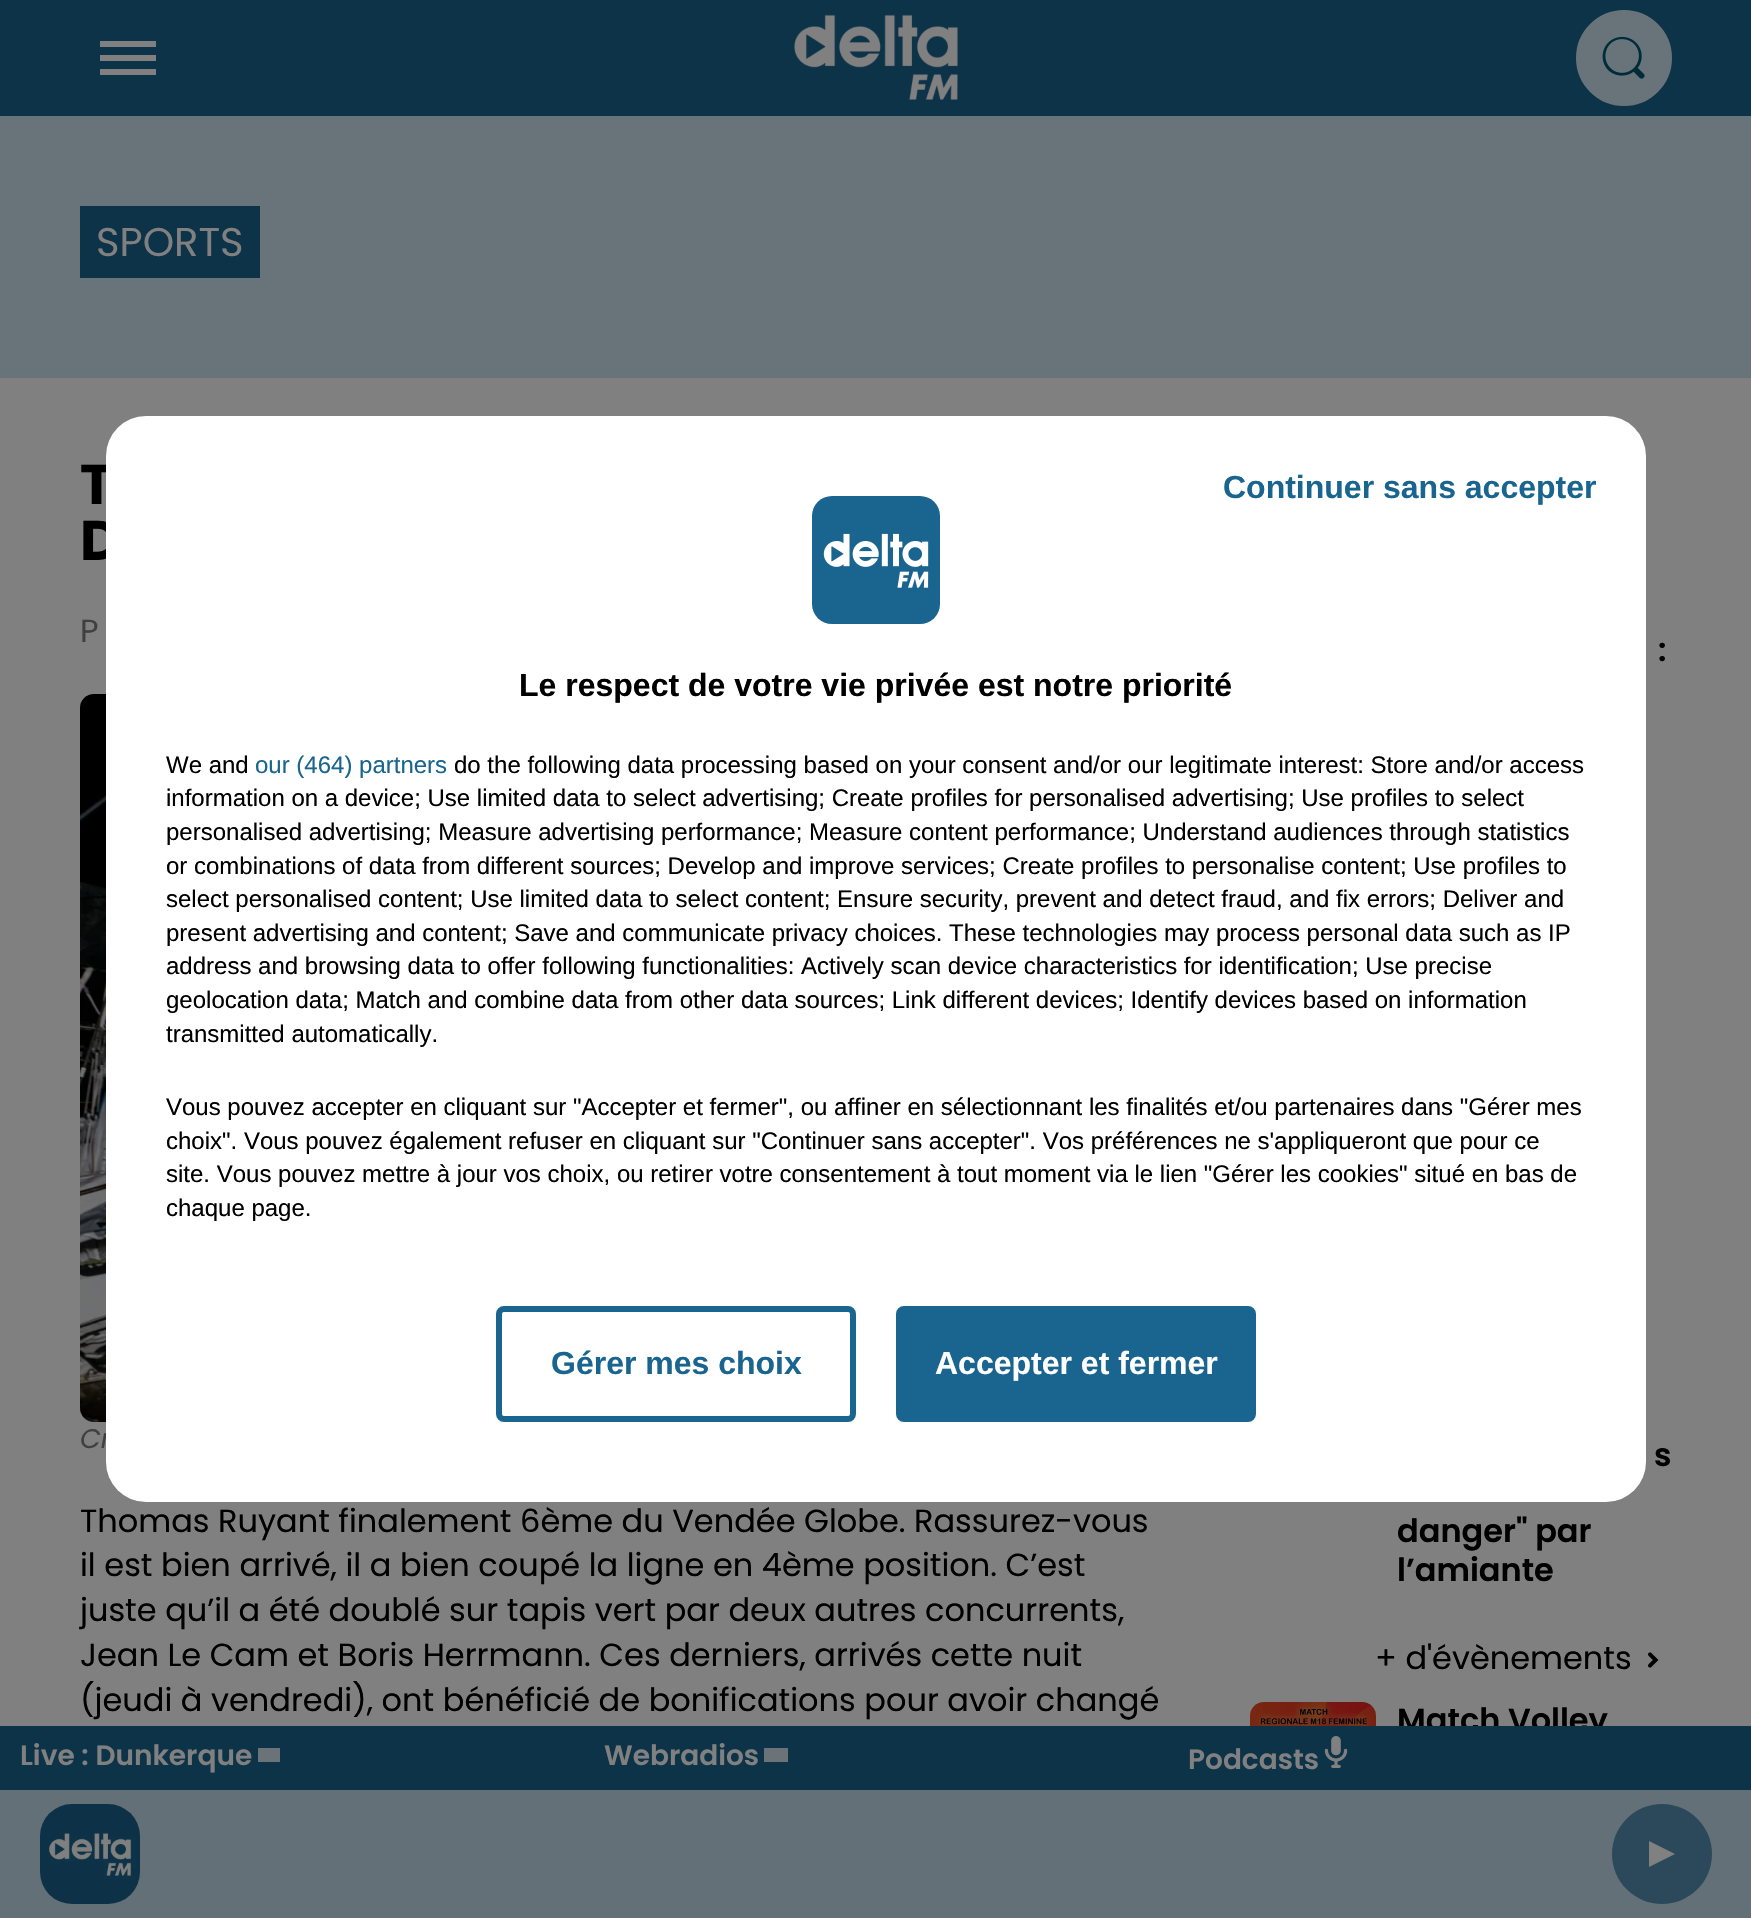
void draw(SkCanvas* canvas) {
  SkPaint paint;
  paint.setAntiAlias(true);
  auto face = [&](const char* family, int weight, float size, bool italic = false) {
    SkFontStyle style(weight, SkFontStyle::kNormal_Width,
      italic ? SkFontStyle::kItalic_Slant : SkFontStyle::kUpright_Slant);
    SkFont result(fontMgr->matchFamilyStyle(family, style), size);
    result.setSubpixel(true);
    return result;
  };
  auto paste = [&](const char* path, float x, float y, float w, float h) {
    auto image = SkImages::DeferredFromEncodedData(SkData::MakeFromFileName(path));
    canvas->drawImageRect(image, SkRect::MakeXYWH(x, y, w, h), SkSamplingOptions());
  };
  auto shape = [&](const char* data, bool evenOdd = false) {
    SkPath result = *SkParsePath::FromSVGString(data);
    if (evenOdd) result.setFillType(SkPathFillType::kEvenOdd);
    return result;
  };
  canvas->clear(0xff808080);
  paint.setColor(0xff69747a);
  canvas->drawRect(SkRect::MakeXYWH(0, 116, 1751, 262), paint);
  paint.setColor(0xff0d3348);
  canvas->drawRect(SkRect::MakeXYWH(80, 206, 180, 72), paint);
  paste("img/1.png", 80, 694, 26, 728);
  paste("img/2.png", 1648, 1652, 11, 16);
  paste("img/3.png", 1250, 1702, 126, 24);
  canvas->drawRect(SkRect::MakeXYWH(0, 0, 1751, 116), paint);
  paint.setColor(0xff808080);
  canvas->drawPath(shape("M100 75V69H156V75ZM100 61V55H156V61ZM100 47V41H156V47Z"), paint);
  paste("img/4.png", 794, 14, 164, 86);
  paint.setColor(0xff69747a);
  canvas->drawCircle(1624, 58, 46, paint);
  paint.setStroke(true);
  paint.setStrokeWidth(4);
  canvas->drawCircle(1624, 58, 46, paint);
  paste("img/5.png", 1602, 36, 43, 43);
  paint.setStroke(false);
  paint.setColor(0xff647077);
  canvas->drawRect(SkRect::MakeXYWH(0, 1790, 1751, 128), paint);
  paste("img/7.png", 40, 1804, 100, 100);
  paint.setColor(0xff2b495a);
  canvas->drawCircle(1662, 1854, 50, paint);
  paint.setColor(0xff808080);
  canvas->drawPath(shape("M1675 1854L1649 1867V1841Z"), paint);
  auto f0 = face("Poppins", 400, 40);
  canvas->drawString("SPORTS", 96, 256, f0, paint);
  auto f1 = face("Poppins", 700, 56);
  paint.setColor(0xff000000);
  canvas->drawString("T", 80, 504, f1, paint);
  canvas->drawString("D", 80, 560, f1, paint);
  auto f2 = face("Poppins", 400, 32);
  paint.setColor(0xff404040);
  canvas->drawString("P", 80, 642, f2, paint);
  auto f3 = face("Poppins", 400, 27, true);
  canvas->drawString("Cr", 80, 1448, f3, paint);
  paint.setColor(0xff000000);
  {
    const struct { const char* s; float x, y; } items[] = {
      {"Thomas Ruyant finalement 6ème du Vendée Globe. Rassurez-vous", 80, 1532},
      {"il est bien arrivé, il a bien coupé la ligne en 4ème position. C’est", 80, 1576},
      {"juste qu’il a été doublé sur tapis vert par deux autres concurrents,", 80, 1621},
      {"Jean Le Cam et Boris Herrmann. Ces derniers, arrivés cette nuit", 80, 1666},
      {"(jeudi à vendredi), ont bénéficié de bonifications pour avoir changé", 80, 1711},
    };
    for (auto [s, x, y] : items) {
      canvas->drawString(s, x, y, f2, paint);
    }
  }
  auto f4 = face("Poppins", 600, 32);
  {
    const struct { const char* s; float x, y; } items[] = {
      {":", 1658, 661},
      {"s", 1654, 1466},
      {"danger\" par", 1397, 1542},
      {"l’amiante", 1397, 1581},
    };
    for (auto [s, x, y] : items) {
      canvas->drawString(s, x, y, f4, paint);
    }
  }
  canvas->drawString("+ d'évènements", 1375, 1669, f2, paint);
  canvas->drawString("Match Volley", 1397, 1731, f4, paint);
  paint.setColor(0xff0d3348);
  canvas->drawRect(SkRect::MakeXYWH(0, 1726, 1751, 64), paint);
  auto f5 = face("Poppins", 600, 28);
  paint.setColor(0xff808080);
  canvas->drawString("Live : Dunkerque", 20, 1765, f5, paint);
  paint.setColor(0xff6c7378);
  canvas->drawRect(SkRect::MakeXYWH(258, 1748, 22, 14), paint);
  paint.setColor(0xff808080);
  canvas->drawString("Webradios", 604, 1765, f5, paint);
  paint.setColor(0xff6c7378);
  canvas->drawRect(SkRect::MakeXYWH(764, 1748, 24, 14), paint);
  paint.setColor(0xff808080);
  canvas->drawString("Podcasts", 1188, 1769, f5, paint);
  paste("img/6.png", 1324, 1736, 24, 32);
  paint.setColor(0xffffffff);
  canvas->drawRoundRect(SkRect::MakeXYWH(106, 416, 1540, 1086), 40, 40, paint);
  auto f6 = face("Liberation Sans", 700, 32);
  paint.setColor(0xff19658f);
  canvas->drawString("Continuer sans accepter", 1223, 498, f6, paint);
  paint.setStroke(true);
  paint.setStrokeWidth(6);
  canvas->drawRoundRect(SkRect::MakeXYWH(499, 1309, 354, 110), 5, 5, paint);
  paint.setStroke(false);
  canvas->drawString("Gérer mes choix", 551, 1374, f6, paint);
  canvas->drawRoundRect(SkRect::MakeXYWH(899, 1309, 354, 110), 5, 5, paint);
  paint.setStroke(true);
  canvas->drawRoundRect(SkRect::MakeXYWH(899, 1309, 354, 110), 5, 5, paint);
  paint.setStroke(false);
  paint.setColor(0xffffffff);
  canvas->drawString("Accepter et fermer", 935, 1374, f6, paint);
  paste("img/8.png", 812, 496, 128, 128);
  paint.setColor(0xff000000);
  canvas->drawString("Le respect de votre vie privée est notre priorité", 519, 696, f6, paint);
  auto f7 = face("Liberation Sans", 400, 24);
  canvas->drawString("We and", 166, 773, f7, paint);
  paint.setColor(0xff19658f);
  canvas->drawString("our (464) partners", 255, 773, f7, paint);
  paint.setColor(0xff000000);
  {
    const struct { const char* s; float x, y; } items[] = {
      {"do the following data processing based on your consent and/or our legitimate interest: Store and/or access", 454, 773},
      {"information on a device; Use limited data to select advertising; Create profiles for personalised advertising; Use profiles to select", 166, 806},
      {"personalised advertising; Measure advertising performance; Measure content performance; Understand audiences through statistics", 166, 840},
      {"or combinations of data from different sources; Develop and improve services; Create profiles to personalise content; Use profiles to", 166, 874},
      {"select personalised content; Use limited data to select content; Ensure security, prevent and detect fraud, and fix errors; Deliver and", 166, 907},
      {"present advertising and content; Save and communicate privacy choices. These technologies may process personal data such as IP", 166, 941},
      {"address and browsing data to offer following functionalities: Actively scan device characteristics for identification; Use precise", 166, 974},
      {"geolocation data; Match and combine data from other data sources; Link different devices; Identify devices based on information", 166, 1008},
      {"transmitted automatically.", 166, 1042},
      {"Vous pouvez accepter en cliquant sur \"Accepter et fermer\", ou affiner en sélectionnant les finalités et/ou partenaires dans \"Gérer mes", 166, 1115},
      {"choix\". Vous pouvez également refuser en cliquant sur \"Continuer sans accepter\". Vos préférences ne s'appliqueront que pour ce", 166, 1149},
      {"site. Vous pouvez mettre à jour vos choix, ou retirer votre consentement à tout moment via le lien \"Gérer les cookies\" situé en bas de", 166, 1182},
      {"chaque page.", 166, 1216},
    };
    for (auto [s, x, y] : items) {
      canvas->drawString(s, x, y, f7, paint);
    }
  }
}
